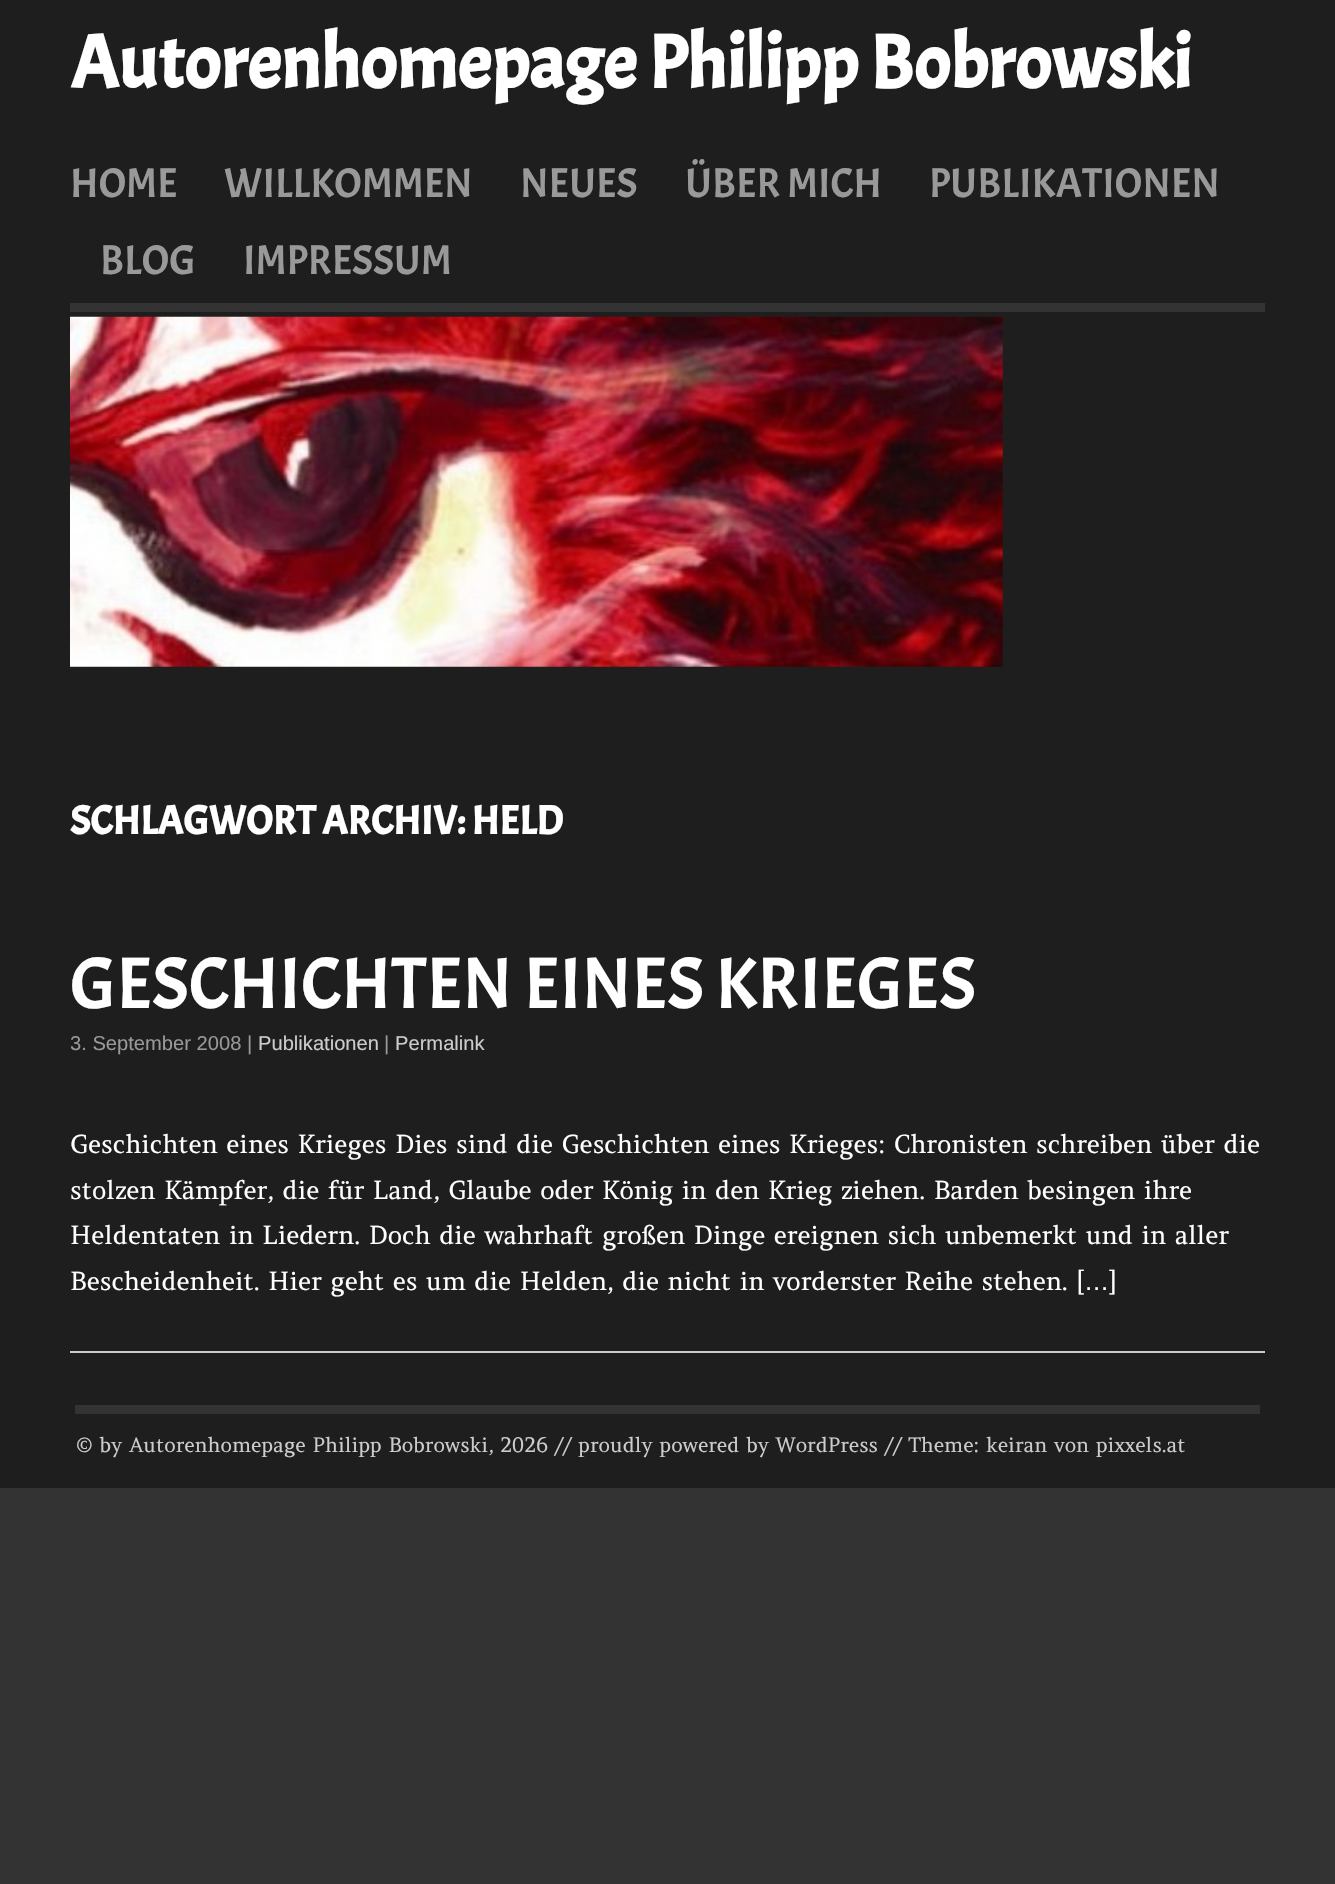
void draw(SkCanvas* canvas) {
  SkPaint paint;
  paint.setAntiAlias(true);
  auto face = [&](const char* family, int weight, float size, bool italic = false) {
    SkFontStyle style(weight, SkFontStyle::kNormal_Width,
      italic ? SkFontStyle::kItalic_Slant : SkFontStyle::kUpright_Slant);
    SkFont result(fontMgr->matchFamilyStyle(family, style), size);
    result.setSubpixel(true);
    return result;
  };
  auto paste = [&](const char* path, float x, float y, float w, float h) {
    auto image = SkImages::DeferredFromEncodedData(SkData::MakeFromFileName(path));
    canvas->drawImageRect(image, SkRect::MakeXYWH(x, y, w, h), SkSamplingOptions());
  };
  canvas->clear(0xff333333);
  paint.setColor(0xff1e1e1e);
  canvas->drawRect(SkRect::MakeXYWH(0, 0, 1335, 1488), paint);
  paint.setColor(0xff333333);
  canvas->drawRect(SkRect::MakeXYWH(70, 303, 1195, 9), paint);
  paste("img/1.png", 70, 316, 933, 351);
  paint.setColor(0xffcccccc);
  canvas->drawRect(SkRect::MakeXYWH(70, 1351, 1195, 2), paint);
  paint.setColor(0xff333333);
  canvas->drawRect(SkRect::MakeXYWH(75, 1405, 1185, 9), paint);
  auto f0 = face("Acme", 700, 75.6f);
  paint.setColor(0xffffffff);
  canvas->drawString("Autorenhomepage Philipp Bobrowski", 70, 88, f0, paint);
  auto f1 = face("Acme", 400, 41.5f);
  paint.setColor(0xff999999);
  {
    const struct { const char* s; float x, y; } items[] = {
      {"HOME", 70, 197},
      {"WILLKOMMEN", 224, 197},
      {"NEUES", 520, 197},
      {"ÜBER MICH", 685, 197},
      {"PUBLIKATIONEN", 929, 197},
      {"BLOG", 100, 274},
      {"IMPRESSUM", 243, 274},
    };
    for (auto [s, x, y] : items) {
      canvas->drawString(s, x, y, f1, paint);
    }
  }
  auto f2 = face("Acme", 700, 40.25f);
  paint.setColor(0xffffffff);
  canvas->drawString("SCHLAGWORT ARCHIV: HELD", 70, 834, f2, paint);
  auto f3 = face("Acme", 400, 72.75f);
  canvas->drawString("GESCHICHTEN EINES KRIEGES", 70, 1008, f3, paint);
  auto f4 = face("Liberation Sans", 400, 20.15f);
  paint.setColor(0xff999999);
  canvas->drawString("3. September 2008 |", 70, 1050, f4, paint);
  paint.setColor(0xffcccccc);
  canvas->drawString("Publikationen", 258, 1050, f4, paint);
  paint.setColor(0xff999999);
  canvas->drawString("|", 384, 1050, f4, paint);
  paint.setColor(0xffcccccc);
  canvas->drawString("Permalink", 395, 1050, f4, paint);
  auto f5 = face("Amethysta", 400, 25.2f);
  paint.setColor(0xffffffff);
  {
    const struct { const char* s; float x, y; } items[] = {
      {"Geschichten eines Krieges Dies sind die Geschichten eines Krieges: Chronisten schreiben über die", 70, 1153},
      {"stolzen Kämpfer, die für Land, Glaube oder König in den Krieg ziehen. Barden besingen ihre", 70, 1199},
      {"Heldentaten in Liedern. Doch die wahrhaft großen Dinge ereignen sich unbemerkt und in aller", 70, 1244},
      {"Bescheidenheit. Hier geht es um die Helden, die nicht in vorderster Reihe stehen. [", 70, 1290},
    };
    for (auto [s, x, y] : items) {
      canvas->drawString(s, x, y, f5, paint);
    }
  }
  auto f6 = face("Liberation Sans", 400, 25.2f);
  canvas->drawString("…", 1084, 1290, f6, paint);
  canvas->drawString("]", 1109, 1290, f5, paint);
  auto f7 = face("Amethysta", 400, 20.15f);
  paint.setColor(0xffcccccc);
  canvas->drawString("© by Autorenhomepage Philipp Bobrowski, 2026 // proudly powered by WordPress // Theme: keiran von", 76, 1452, f7, paint);
  canvas->drawString("pixxels.at", 1096, 1452, f7, paint);
}
